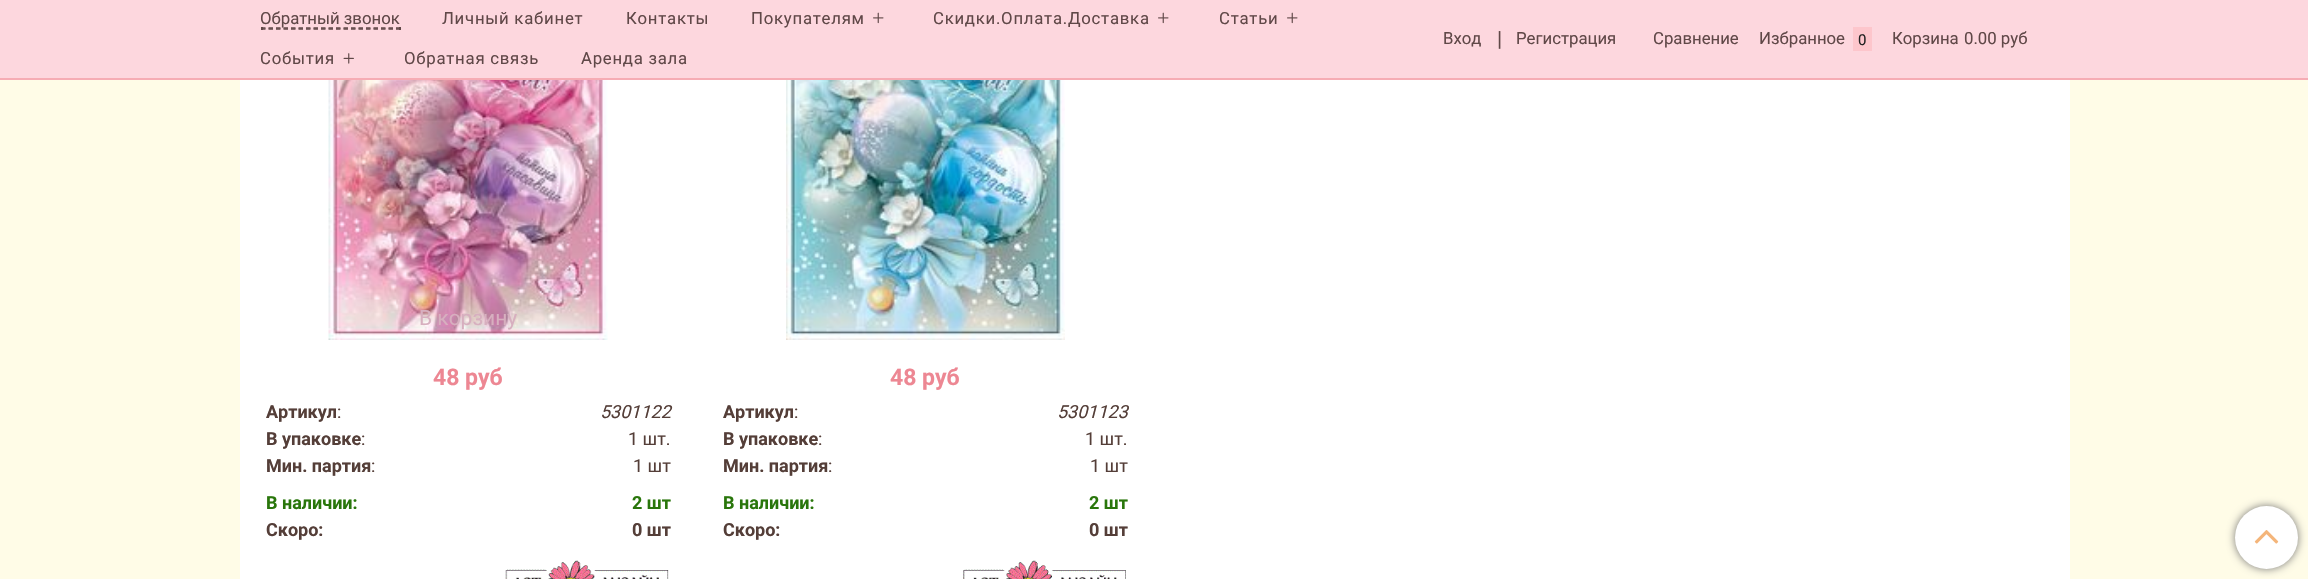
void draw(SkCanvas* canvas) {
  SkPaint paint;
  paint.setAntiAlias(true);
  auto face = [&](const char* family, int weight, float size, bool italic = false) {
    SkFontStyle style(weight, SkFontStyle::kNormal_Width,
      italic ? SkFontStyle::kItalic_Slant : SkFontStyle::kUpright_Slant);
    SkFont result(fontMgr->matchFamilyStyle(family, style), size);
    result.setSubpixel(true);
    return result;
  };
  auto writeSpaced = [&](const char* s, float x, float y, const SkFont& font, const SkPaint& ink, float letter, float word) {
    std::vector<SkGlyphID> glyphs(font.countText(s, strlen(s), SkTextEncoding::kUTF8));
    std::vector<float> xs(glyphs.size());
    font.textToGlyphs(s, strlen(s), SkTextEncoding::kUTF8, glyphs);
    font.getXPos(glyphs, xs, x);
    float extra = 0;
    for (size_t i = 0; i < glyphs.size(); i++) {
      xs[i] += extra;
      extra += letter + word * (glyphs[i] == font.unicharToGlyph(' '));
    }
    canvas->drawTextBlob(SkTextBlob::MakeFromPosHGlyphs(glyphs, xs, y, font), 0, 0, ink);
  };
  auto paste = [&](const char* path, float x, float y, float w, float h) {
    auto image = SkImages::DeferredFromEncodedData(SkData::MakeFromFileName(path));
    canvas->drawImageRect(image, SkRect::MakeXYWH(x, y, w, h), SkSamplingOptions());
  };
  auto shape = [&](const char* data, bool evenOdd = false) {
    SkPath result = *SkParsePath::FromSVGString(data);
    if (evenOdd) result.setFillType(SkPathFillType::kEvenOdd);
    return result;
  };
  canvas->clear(0xfffffce7);
  paint.setColor(0xfffdd7de);
  canvas->drawRect(SkRect::MakeXYWH(0, 0, 2308, 78), paint);
  paint.setColor(0xfff6acb4);
  canvas->drawRect(SkRect::MakeXYWH(0, 78, 2308, 2), paint);
  paint.setStroke(true);
  paint.setStrokeWidth(1.5f);
  paint.setColor(0xff604848);
  paint.setPathEffect(SkDashPathEffect::Make({{4.5f, 3}}, 0));
  canvas->drawPath(shape("M261 28H400.5"), paint);
  paint.setPathEffect(nullptr);
  paint.setStroke(false);
  canvas->drawRect(SkRect::MakeXYWH(399, 27, 2, 3), paint);
  paint.setStroke(true);
  paint.setPathEffect(SkDashPathEffect::Make({{4.5f, 3}}, 0));
  canvas->drawPath(shape("M261 29H400.5"), paint);
  paint.setPathEffect(nullptr);
  paint.setStroke(false);
  canvas->drawRect(SkRect::MakeXYWH(261, 27, 2, 3), paint);
  paste("img/1.png", 873, 12, 11, 12);
  paste("img/1.png", 1158, 12, 11, 12);
  paste("img/1.png", 1287, 12, 11, 12);
  paste("img/2.png", 343, 53, 11, 11);
  paint.setColor(0xfffdc6cc);
  canvas->drawRect(SkRect::MakeXYWH(1853, 27, 19, 24), paint);
  paint.setColor(0xffffffff);
  canvas->drawRect(SkRect::MakeXYWH(240, 80, 1830, 499), paint);
  paste("img/3.png", 328, 80, 280, 260);
  paste("img/4.png", 505, 560, 164, 19);
  paste("img/5.png", 786, 80, 279, 260);
  paste("img/6.png", 963, 560, 163, 19);
  paint.setColor(0xff777777);
  paint.setMaskFilter(SkMaskFilter::MakeBlur(kNormal_SkBlurStyle, 4));
  canvas->drawRoundRect(SkRect::MakeXYWH(2235, 506, 63, 63), 31.5f, 31.5f, paint);
  paint.setMaskFilter(nullptr);
  paint.setColor(0xffffffff);
  canvas->drawCircle(2266.5f, 537.5f, 31.5f, paint);
  paste("img/7.png", 2254, 530, 25, 14);
  auto f0 = face("Roboto", 400, 16.75f);
  paint.setColor(0xff604848);
  canvas->drawString("Обратный звонок", 260, 24, f0, paint);
  {
    const struct { const char* s; float x, y; } items[] = {
      {"Личный кабинет", 442, 24},
      {"Контакты", 626, 24},
      {"Покупателям", 751, 24},
      {"Скидки.Оплата.Доставка", 933, 24},
      {"Статьи", 1219, 24},
      {"События", 260, 64},
      {"Обратная связь", 404, 64},
      {"Аренда зала", 581, 64},
    };
    for (auto [s, x, y] : items) {
      writeSpaced(s, x, y, f0, paint, 0.75f, 0);
    }
  }
  canvas->drawString("Вход", 1443, 44, f0, paint);
  auto f1 = face("Roboto", 400, 21);
  canvas->drawString("|", 1497, 46, f1, paint);
  {
    const struct { const char* s; float x, y; } items[] = {
      {"Регистрация", 1516, 44},
      {"Сравнение", 1653, 44},
      {"Избранное", 1759, 44},
    };
    for (auto [s, x, y] : items) {
      canvas->drawString(s, x, y, f0, paint);
    }
  }
  auto f2 = face("Roboto", 400, 15);
  paint.setColor(0xff222222);
  canvas->drawString("0", 1858, 45, f2, paint);
  paint.setColor(0xff604848);
  canvas->drawString("Корзина", 1892, 44, f0, paint);
  canvas->drawString("0.00 руб", 1964, 44, f0, paint);
  paint.setColor(0xffd7afbf);
  canvas->drawString("В корзину", 419, 325, f1, paint);
  auto f3 = face("Roboto", 700, 23);
  paint.setColor(0xffed8793);
  canvas->drawString("48 руб", 433, 385, f3, paint);
  auto f4 = face("Roboto", 700, 18);
  paint.setColor(0xff543e38);
  canvas->drawString("Артикул", 266, 418, f4, paint);
  auto f5 = face("Roboto", 400, 18);
  canvas->drawString(":", 337, 418, f5, paint);
  auto f6 = face("Roboto", 400, 18, true);
  canvas->drawString("5301122", 600, 418, f6, paint);
  canvas->drawString("В упаковке", 266, 445, f4, paint);
  canvas->drawString(":", 361, 445, f5, paint);
  canvas->drawString("1 шт.", 628, 445, f5, paint);
  canvas->drawString("Мин. партия", 266, 472, f4, paint);
  canvas->drawString(":", 371, 472, f5, paint);
  canvas->drawString("1 шт", 633, 472, f5, paint);
  paint.setColor(0xff29760b);
  canvas->drawString("В наличии:", 266, 509, f4, paint);
  canvas->drawString("2 шт", 632, 509, f4, paint);
  paint.setColor(0xff543e38);
  canvas->drawString("Скоро:", 266, 536, f4, paint);
  canvas->drawString("0 шт", 632, 536, f4, paint);
  paint.setColor(0xffed8793);
  canvas->drawString("48 руб", 890, 385, f3, paint);
  paint.setColor(0xff543e38);
  canvas->drawString("Артикул", 723, 418, f4, paint);
  canvas->drawString(":", 794, 418, f5, paint);
  canvas->drawString("5301123", 1057, 418, f6, paint);
  canvas->drawString("В упаковке", 723, 445, f4, paint);
  canvas->drawString(":", 818, 445, f5, paint);
  canvas->drawString("1 шт.", 1085, 445, f5, paint);
  canvas->drawString("Мин. партия", 723, 472, f4, paint);
  canvas->drawString(":", 828, 472, f5, paint);
  canvas->drawString("1 шт", 1090, 472, f5, paint);
  paint.setColor(0xff29760b);
  canvas->drawString("В наличии:", 723, 509, f4, paint);
  canvas->drawString("2 шт", 1089, 509, f4, paint);
  paint.setColor(0xff543e38);
  canvas->drawString("Скоро:", 723, 536, f4, paint);
  canvas->drawString("0 шт", 1089, 536, f4, paint);
}
